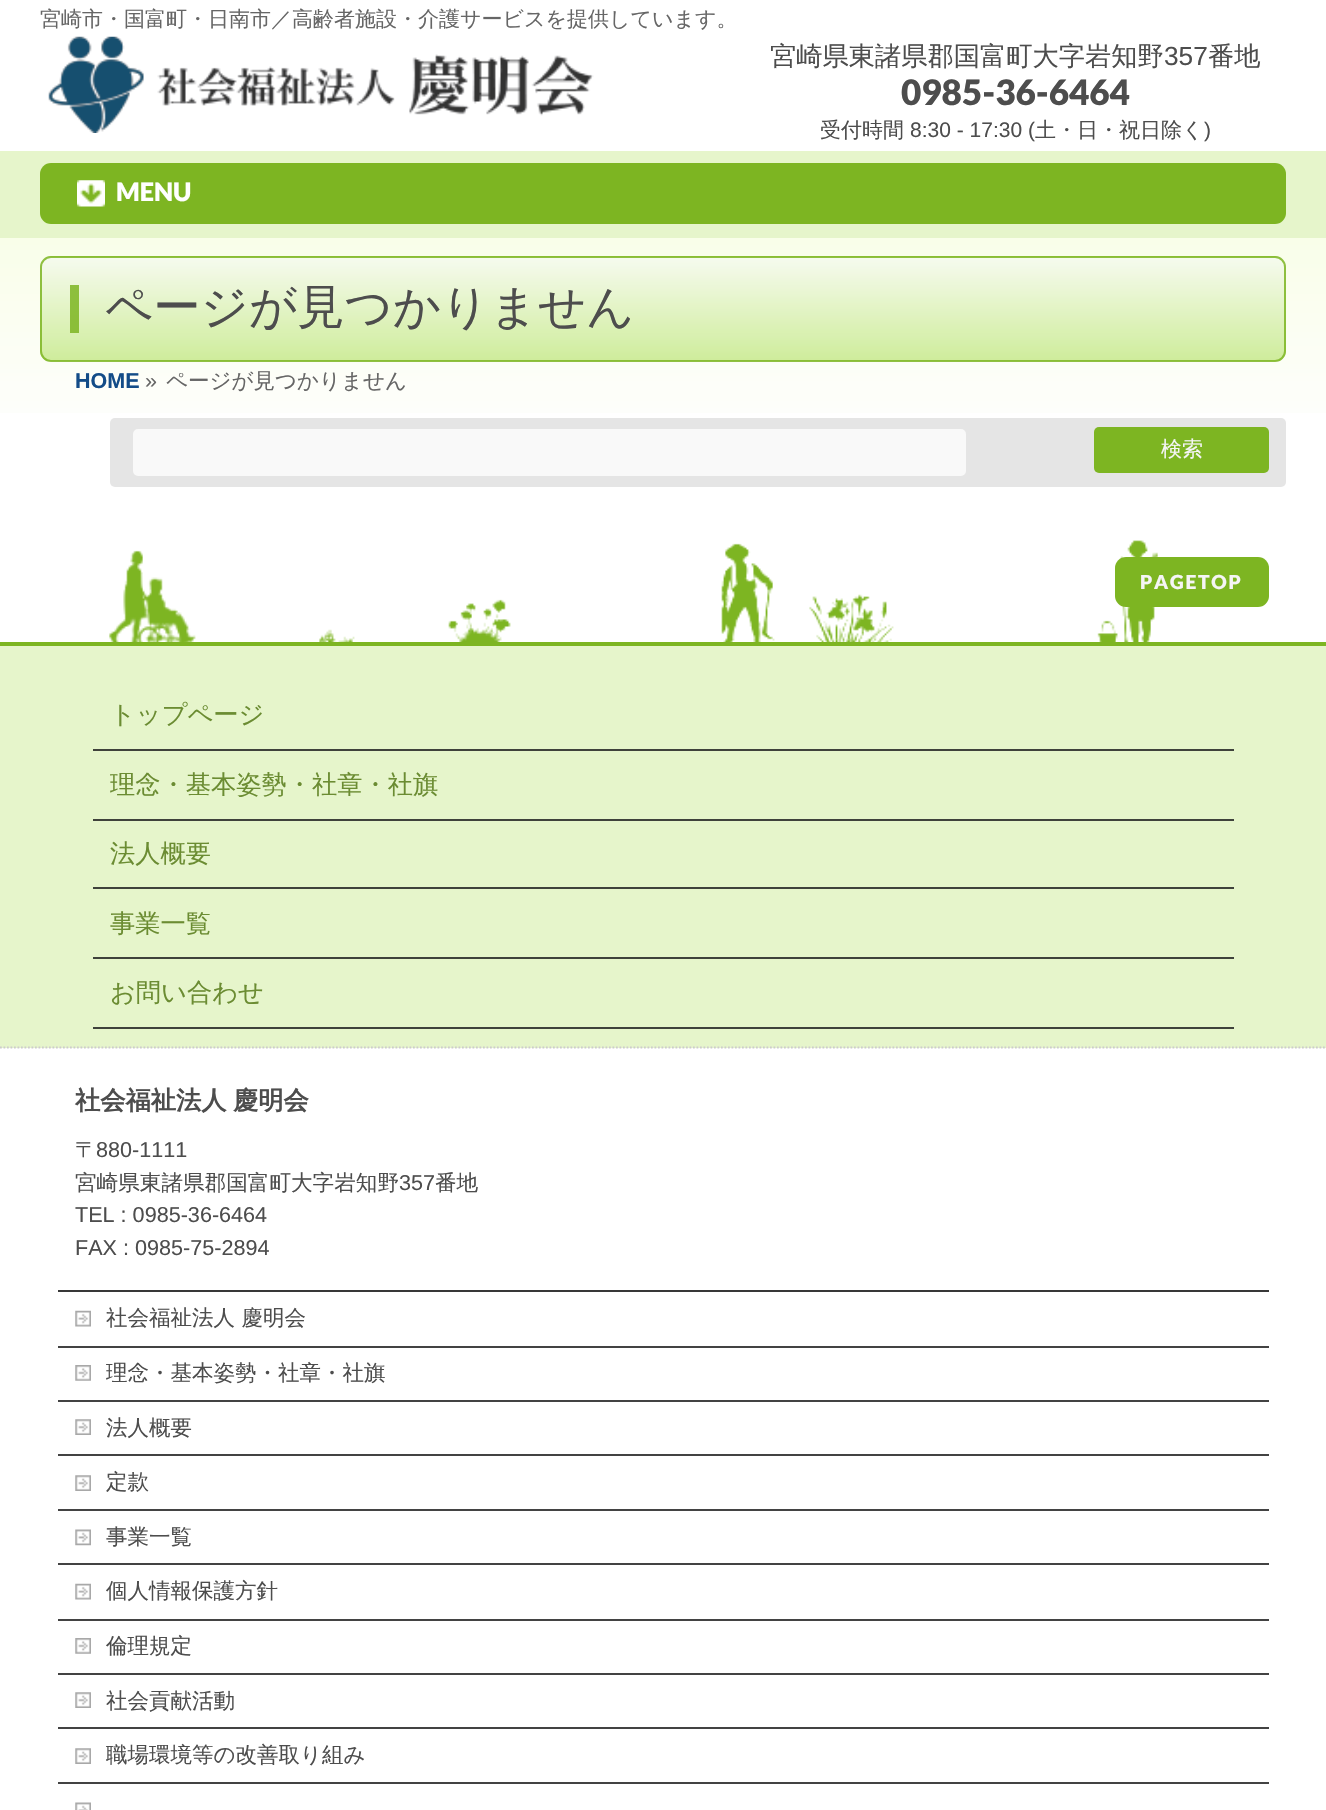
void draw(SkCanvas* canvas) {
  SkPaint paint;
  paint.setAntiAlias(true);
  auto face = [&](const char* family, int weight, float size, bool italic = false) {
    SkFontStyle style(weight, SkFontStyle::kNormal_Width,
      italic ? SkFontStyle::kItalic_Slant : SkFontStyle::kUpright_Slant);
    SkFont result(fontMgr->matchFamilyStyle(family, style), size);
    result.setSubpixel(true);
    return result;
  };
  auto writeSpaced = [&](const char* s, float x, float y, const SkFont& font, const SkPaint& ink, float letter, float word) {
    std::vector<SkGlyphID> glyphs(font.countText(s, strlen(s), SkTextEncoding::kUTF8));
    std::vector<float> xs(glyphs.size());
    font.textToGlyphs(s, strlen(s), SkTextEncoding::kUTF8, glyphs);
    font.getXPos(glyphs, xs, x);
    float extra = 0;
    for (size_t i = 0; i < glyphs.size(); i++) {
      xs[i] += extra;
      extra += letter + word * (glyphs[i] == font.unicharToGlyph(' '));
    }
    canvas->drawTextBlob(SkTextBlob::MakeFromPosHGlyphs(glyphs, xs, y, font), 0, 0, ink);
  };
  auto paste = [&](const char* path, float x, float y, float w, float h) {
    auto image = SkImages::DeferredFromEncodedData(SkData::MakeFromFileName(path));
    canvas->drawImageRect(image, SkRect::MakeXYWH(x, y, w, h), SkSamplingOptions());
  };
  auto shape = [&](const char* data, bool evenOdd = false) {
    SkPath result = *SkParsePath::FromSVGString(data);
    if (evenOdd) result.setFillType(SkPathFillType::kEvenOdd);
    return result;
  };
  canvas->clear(0xffffffff);
  paste("img/1.png", 0, 238, 1326, 175);
  paste("img/2.png", 48, 36, 546, 97);
  paint.setColor(0xffe6f5cb);
  canvas->drawRect(SkRect::MakeXYWH(0, 151, 1326, 87), paint);
  paint.setColor(0xff7db522);
  canvas->drawRoundRect(SkRect::MakeXYWH(40, 163, 1246, 61), 11, 11, paint);
  paste("img/3.png", 77, 180, 28, 27);
  canvas->save();
  canvas->clipPath(shape("M51 256H1275C1281 256 1286 261 1286 267V351C1286 357 1281 362 1275 362H51C45 362 40 357 40 351V267C40 261 45 256 51 256Z"), true);
  {
    const SkColor colors[] = {0xfff6fbee, 0xffceec99};
    const float stops[] = {0, 1};
    const SkPoint ends[] = {{663, 154}, {663, 257}};
    paint.setShader(SkGradientShader::MakeLinear(ends, colors, stops, 2, SkTileMode::kClamp));
    paint.setAlpha(255);
  }
  canvas->drawRect(SkRect::MakeXYWH(40, 256, 1246, 1), paint);
  {
    const SkColor colors[] = {0xd9f5faef, 0xd9c6e98b};
    const float stops[] = {0, 1};
    const SkPoint ends[] = {{663, 257}, {663, 361}};
    paint.setShader(SkGradientShader::MakeLinear(ends, colors, stops, 2, SkTileMode::kClamp));
    paint.setAlpha(255);
  }
  canvas->drawRect(SkRect::MakeXYWH(40, 257, 1246, 104), paint);
  {
    const SkColor colors[] = {0xfff6fbf0, 0xffceec9b};
    const float stops[] = {0, 1};
    const SkPoint ends[] = {{663, 360}, {663, 464}};
    paint.setShader(SkGradientShader::MakeLinear(ends, colors, stops, 2, SkTileMode::kClamp));
    paint.setAlpha(255);
  }
  canvas->drawRect(SkRect::MakeXYWH(40, 361, 1246, 1), paint);
  canvas->restore();
  paint.setStroke(true);
  paint.setStrokeWidth(2);
  paint.setShader(nullptr);
  paint.setColor(0xd97db522);
  canvas->drawRoundRect(SkRect::MakeXYWH(41, 257, 1244, 104), 10, 10, paint);
  paint.setStroke(false);
  canvas->drawRect(SkRect::MakeXYWH(70, 285, 9, 48), paint);
  paint.setColor(0xffe5e5e5);
  canvas->drawRoundRect(SkRect::MakeXYWH(110, 418, 1176, 69), 5, 5, paint);
  paint.setColor(0xfff9f9f9);
  canvas->drawRoundRect(SkRect::MakeXYWH(132, 428, 835, 49), 6, 6, paint);
  paint.setStroke(true);
  paint.setColor(0xffe5e5e5);
  canvas->drawRoundRect(SkRect::MakeXYWH(132, 428, 835, 49), 6, 6, paint);
  paint.setStroke(false);
  paint.setColor(0xff7db522);
  canvas->drawRoundRect(SkRect::MakeXYWH(1094, 427, 175, 46), 5, 5, paint);
  paste("img/4.png", 109, 540, 1049, 102);
  canvas->drawRoundRect(SkRect::MakeXYWH(1115, 557, 154, 50), 11, 11, paint);
  paint.setColor(0xffe6f5cb);
  canvas->drawRect(SkRect::MakeXYWH(0, 646, 1326, 402), paint);
  paint.setColor(0xff7db522);
  canvas->drawRect(SkRect::MakeXYWH(0, 642, 1326, 4), paint);
  paint.setStroke(true);
  paint.setStrokeWidth(1.8f);
  paint.setColor(0xffcccccc);
  paint.setPathEffect(SkDashPathEffect::Make({{1.75f, 1.75f}}, 0));
  canvas->drawPath(shape("M0 1047.5H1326.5"), paint);
  paint.setPathEffect(nullptr);
  paint.setStroke(false);
  {
    const struct { float x, y, w, h; SkColor color; } items[] = {
      {93, 749, 1141, 2, 0xff3f423b},
      {93, 819, 1141, 2, 0xff3f423b},
      {93, 887, 1141, 2, 0xff3f423b},
      {93, 957, 1141, 2, 0xff3f423b},
      {93, 1027, 1141, 2, 0xff3f423b},
      {58, 1290, 1211, 2, 0xff383838},
    };
    for (auto [x, y, w, h, color] : items) {
      paint.setColor(color);
      canvas->drawRect(SkRect::MakeXYWH(x, y, w, h), paint);
    }
  }
  paste("img/5.png", 75, 1310, 16, 17);
  paint.setColor(0xff434343);
  canvas->drawRect(SkRect::MakeXYWH(58, 1346, 1211, 2), paint);
  paste("img/6.png", 75, 1365, 16, 16);
  canvas->drawRect(SkRect::MakeXYWH(58, 1400, 1211, 2), paint);
  paste("img/7.png", 75, 1419, 16, 16);
  canvas->drawRect(SkRect::MakeXYWH(58, 1454, 1211, 2), paint);
  paste("img/7.png", 75, 1475, 16, 16);
  canvas->drawRect(SkRect::MakeXYWH(58, 1509, 1211, 2), paint);
  paste("img/8.png", 75, 1529, 16, 17);
  canvas->drawRect(SkRect::MakeXYWH(58, 1563, 1211, 2), paint);
  paste("img/5.png", 75, 1583, 16, 17);
  canvas->drawRect(SkRect::MakeXYWH(58, 1619, 1211, 2), paint);
  paste("img/6.png", 75, 1638, 16, 16);
  canvas->drawRect(SkRect::MakeXYWH(58, 1673, 1211, 2), paint);
  paste("img/7.png", 75, 1692, 16, 16);
  canvas->drawRect(SkRect::MakeXYWH(58, 1727, 1211, 2), paint);
  paste("img/7.png", 75, 1748, 16, 16);
  canvas->drawRect(SkRect::MakeXYWH(58, 1782, 1211, 2), paint);
  paste("img/9.png", 75, 1802, 16, 8);
  auto f0 = face("WenQuanYi Zen Hei", 500, 21);
  paint.setColor(0xff666666);
  canvas->drawString("宮崎市・国富町・日南市／高齢者施設・介護サービスを提供しています。", 40, 26, f0, paint);
  auto f1 = face("WenQuanYi Zen Hei", 500, 26.25f);
  paint.setColor(0xff4d4d4d);
  canvas->drawString("宮崎県東諸県郡国富町大字岩知野", 770, 65, f1, paint);
  auto f2 = face("Liberation Sans", 400, 26.25f);
  canvas->drawString("357", 1164, 65, f2, paint);
  canvas->drawString("番地", 1208, 65, f1, paint);
  auto f3 = face("Lato", 900, 35);
  canvas->drawString("0985-36-6464", 901, 105, f3, paint);
  canvas->drawString("受付時間", 820, 137, f0, paint);
  auto f4 = face("Liberation Sans", 400, 21);
  canvas->drawString("8:30 - 17:30 (", 910, 137, f4, paint);
  canvas->drawString("土・日・祝日除く", 1035, 137, f0, paint);
  canvas->drawString(")", 1204, 137, f4, paint);
  auto f5 = face("Lato", 900, 25.25f);
  paint.setColor(0xffffffff);
  canvas->drawString("MENU", 116, 201, f5, paint);
  auto f6 = face("WenQuanYi Zen Hei", 500, 47.25f);
  paint.setColor(0xff4d4d4d);
  canvas->drawString("ページが見つかりません", 105, 323, f6, paint);
  auto f7 = face("Liberation Sans", 700, 21.5f);
  paint.setColor(0xff134c88);
  canvas->drawString("HOME", 75, 388, f7, paint);
  auto f8 = face("Liberation Sans", 400, 21.5f);
  paint.setColor(0xff666666);
  canvas->drawString("»", 145, 388, f8, paint);
  auto f9 = face("WenQuanYi Zen Hei", 500, 21.5f);
  canvas->drawString("ページが見つかりません", 166, 388, f9, paint);
  paint.setColor(0xfff5f5f5);
  canvas->drawString("検索", 1161, 456, f0, paint);
  auto f10 = face("Lato", 900, 19.25f);
  writeSpaced("PAGETOP", 1140, 589, f10, paint, 1.75f, 0);
  auto f11 = face("WenQuanYi Zen Hei", 500, 25.25f);
  paint.setColor(0xff6b8c32);
  {
    const struct { const char* s; float x, y; } items[] = {
      {"トップページ", 110, 723},
      {"理念・基本姿勢・社章・社旗", 110, 793},
      {"法人概要", 110, 862},
      {"事業一覧", 110, 932},
      {"お問い合わせ", 110, 1001},
    };
    for (auto [s, x, y] : items) {
      canvas->drawString(s, x, y, f11, paint);
    }
  }
  auto f12 = face("WenQuanYi Zen Hei", 700, 25.25f);
  paint.setColor(0xff4d4d4d);
  writeSpaced("社会福祉法人 慶明会", 75, 1109, f12, paint, 0, -1);
  auto f13 = face("WenQuanYi Zen Hei", 500, 21.6f);
  canvas->drawString("〒", 75, 1157, f13, paint);
  auto f14 = face("Liberation Sans", 400, 21.6f);
  canvas->drawString("880-1111", 96, 1157, f14, paint);
  canvas->drawString("宮崎県東諸県郡国富町大字岩知野", 75, 1190, f13, paint);
  canvas->drawString("357", 399, 1190, f14, paint);
  canvas->drawString("番地", 435, 1190, f13, paint);
  canvas->drawString("TEL : 0985-36-6464", 75, 1222, f14, paint);
  canvas->drawString("FAX : 0985-75-2894", 75, 1255, f14, paint);
  {
    const struct { const char* s; float x, y; } items[] = {
      {"社会福祉法人 慶明会", 106, 1325},
      {"理念・基本姿勢・社章・社旗", 106, 1380},
      {"法人概要", 106, 1435},
      {"定款", 106, 1489},
      {"事業一覧", 106, 1544},
      {"個人情報保護方針", 106, 1598},
      {"倫理規定", 106, 1653},
      {"社会貢献活動", 106, 1708},
      {"職場環境等の改善取り組み", 106, 1762},
    };
    for (auto [s, x, y] : items) {
      canvas->drawString(s, x, y, f9, paint);
    }
  }
}
